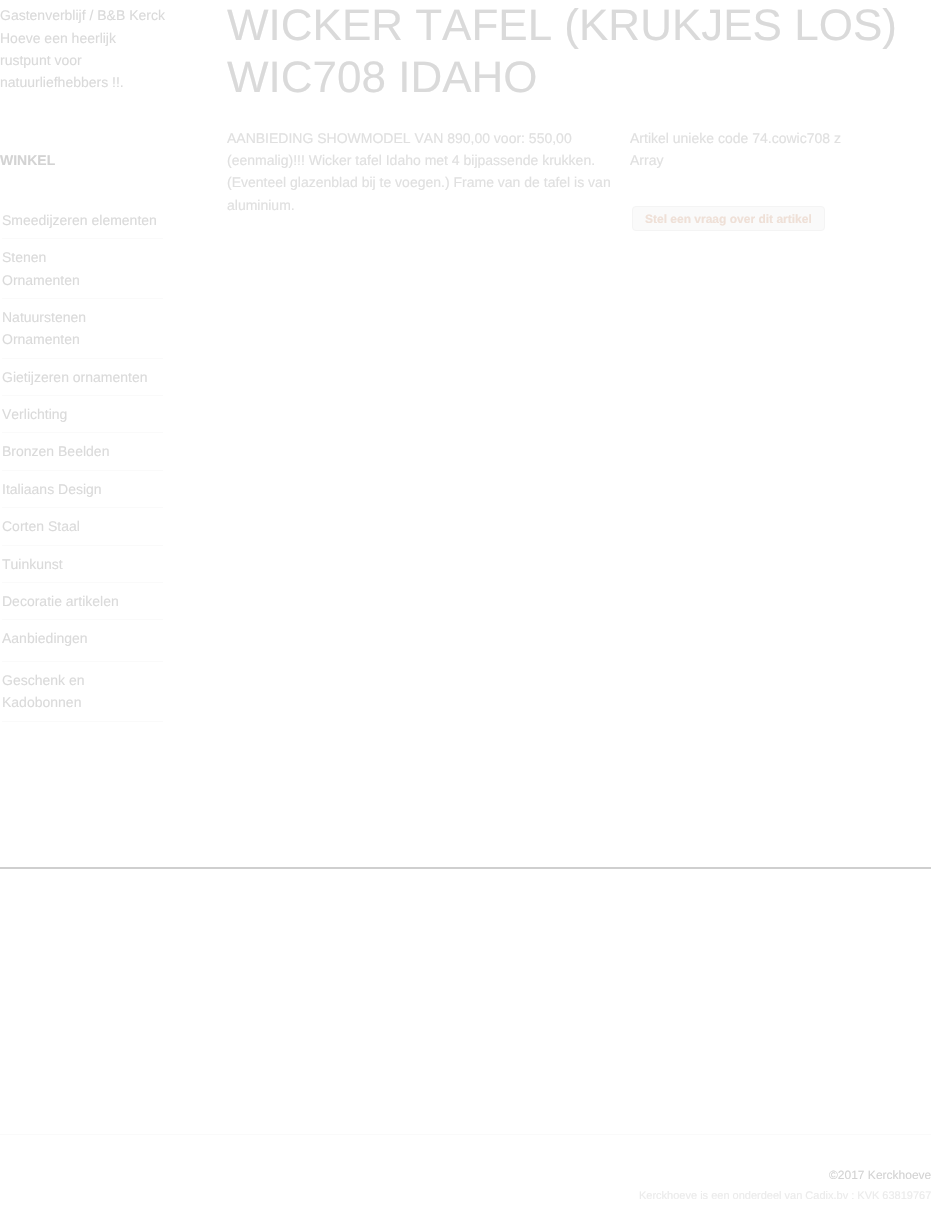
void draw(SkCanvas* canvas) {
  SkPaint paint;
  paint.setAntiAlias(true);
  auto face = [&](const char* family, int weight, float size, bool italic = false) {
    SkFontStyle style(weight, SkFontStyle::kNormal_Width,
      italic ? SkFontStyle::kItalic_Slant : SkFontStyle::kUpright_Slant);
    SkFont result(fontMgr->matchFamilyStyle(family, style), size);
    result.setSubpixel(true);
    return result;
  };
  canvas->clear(0xffffffff);
  {
    const struct { float x, y, w, h; SkColor color; } items[] = {
      {2, 238, 161, 1, 0xfffafafa},
      {2, 298, 161, 1, 0xfffafafa},
      {2, 358, 161, 1, 0xfffafafa},
      {2, 395, 161, 1, 0xfffafafa},
      {2, 432, 161, 1, 0xfffafafa},
      {2, 470, 161, 1, 0xfffafafa},
      {2, 507, 161, 1, 0xfffafafa},
      {2, 545, 161, 1, 0xfffafafa},
      {2, 582, 161, 1, 0xfffafafa},
      {2, 619, 161, 1, 0xfffafafa},
      {2, 661, 161, 1, 0xfffafafa},
      {2, 721, 161, 1, 0xfffafafa},
    };
    for (auto [x, y, w, h, color] : items) {
      paint.setColor(color);
      canvas->drawRect(SkRect::MakeXYWH(x, y, w, h), paint);
    }
  }
  canvas->drawRoundRect(SkRect::MakeXYWH(632.5f, 206.5f, 192, 24), 3.5f, 3.5f, paint);
  paint.setStroke(true);
  paint.setStrokeWidth(1);
  paint.setColor(0xfff4f4f4);
  canvas->drawRoundRect(SkRect::MakeXYWH(632.5f, 206.5f, 192, 24), 3.5f, 3.5f, paint);
  paint.setStroke(false);
  paint.setColor(0xffcfcfcf);
  canvas->drawRect(SkRect::MakeXYWH(0, 867, 931, 2), paint);
  paint.setColor(0xfffafafa);
  canvas->drawRect(SkRect::MakeXYWH(0, 1134, 931, 1), paint);
  auto f0 = face("Liberation Sans", 400, 14);
  paint.setColor(0xffdadada);
  {
    const struct { const char* s; float x, y; } items[] = {
      {"Gastenverblijf / B&B Kerck", 0, 20},
      {"Hoeve een heerlijk", 0, 43},
      {"rustpunt voor", 0, 65},
      {"natuurliefhebbers !!.", 0, 87},
    };
    for (auto [s, x, y] : items) {
      canvas->drawString(s, x, y, f0, paint);
    }
  }
  auto f1 = face("Liberation Sans", 700, 14);
  paint.setColor(0xffd3d3d3);
  canvas->drawString("WINKEL", 0, 165, f1, paint);
  paint.setColor(0xffdadada);
  {
    const struct { const char* s; float x, y; } items[] = {
      {"Smeedijzeren elementen", 2, 225},
      {"Stenen", 2, 262},
      {"Ornamenten", 2, 285},
      {"Natuurstenen", 2, 322},
      {"Ornamenten", 2, 344},
      {"Gietijzeren ornamenten", 2, 382},
      {"Verlichting", 2, 419},
      {"Bronzen Beelden", 2, 456},
      {"Italiaans Design", 2, 494},
      {"Corten Staal", 2, 531},
      {"Tuinkunst", 2, 569},
      {"Decoratie artikelen", 2, 606},
      {"Aanbiedingen", 2, 643},
      {"Geschenk en", 2, 685},
      {"Kadobonnen", 2, 707},
    };
    for (auto [s, x, y] : items) {
      canvas->drawString(s, x, y, f0, paint);
    }
  }
  auto f2 = face("Liberation Sans", 400, 44);
  canvas->drawString("WICKER TAFEL (KRUKJES LOS)", 227, 40, f2, paint);
  canvas->drawString("WIC708 IDAHO", 227, 92, f2, paint);
  paint.setColor(0xffe0e0e0);
  canvas->drawString("Artikel unieke code 74.cowic708 z", 630, 143, f0, paint);
  canvas->drawString("Array", 630, 165, f0, paint);
  auto f3 = face("Liberation Sans", 700, 12);
  paint.setColor(0xffefe0d7);
  canvas->drawString("Stel een vraag over dit artikel", 645, 223, f3, paint);
  paint.setColor(0xffe0e0e0);
  {
    const struct { const char* s; float x, y; } items[] = {
      {"AANBIEDING SHOWMODEL VAN 890,00 voor: 550,00", 227, 143},
      {"(eenmalig)!!! Wicker tafel Idaho met 4 bijpassende krukken.", 227, 165},
      {"(Eventeel glazenblad bij te voegen.) Frame van de tafel is van", 227, 187},
      {"aluminium.", 227, 210},
    };
    for (auto [s, x, y] : items) {
      canvas->drawString(s, x, y, f0, paint);
    }
  }
  auto f4 = face("Liberation Sans", 400, 12);
  paint.setColor(0xffd3d3d3);
  canvas->drawString("©2017 Kerckhoeve", 829, 1179, f4, paint);
  auto f5 = face("Liberation Sans", 400, 11);
  paint.setColor(0xffebebeb);
  canvas->drawString("Kerckhoeve is een onderdeel van Cadix.bv : KVK 63819767", 639, 1199, f5, paint);
}
